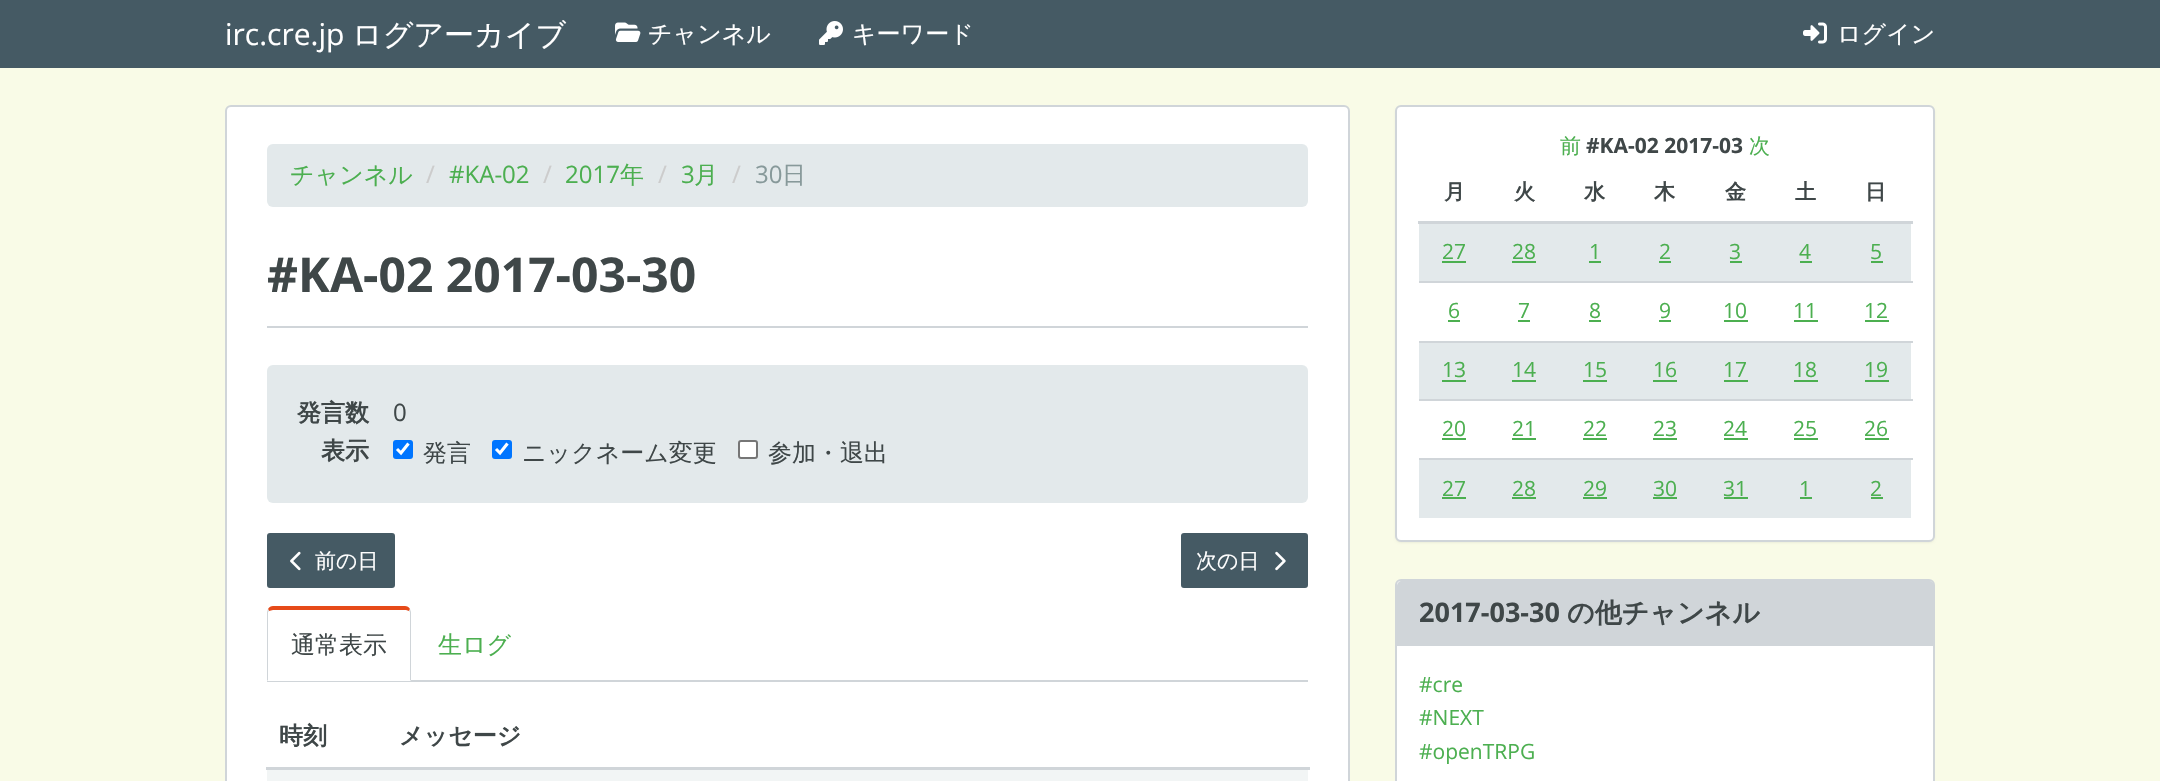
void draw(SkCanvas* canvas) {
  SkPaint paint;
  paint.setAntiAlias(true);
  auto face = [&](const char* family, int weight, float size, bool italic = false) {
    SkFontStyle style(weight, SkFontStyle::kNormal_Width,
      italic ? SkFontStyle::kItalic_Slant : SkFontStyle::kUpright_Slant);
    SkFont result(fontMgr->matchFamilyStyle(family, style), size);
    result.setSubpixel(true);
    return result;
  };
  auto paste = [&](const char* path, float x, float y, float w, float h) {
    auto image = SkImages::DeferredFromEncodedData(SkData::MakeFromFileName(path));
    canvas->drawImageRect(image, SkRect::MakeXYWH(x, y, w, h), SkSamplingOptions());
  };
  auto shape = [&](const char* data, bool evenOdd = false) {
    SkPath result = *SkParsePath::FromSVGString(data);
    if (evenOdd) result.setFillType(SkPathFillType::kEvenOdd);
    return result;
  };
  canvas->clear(0xfff9fbe7);
  paint.setColor(0xff455a64);
  canvas->drawRect(SkRect::MakeXYWH(0, 0, 2160, 68), paint);
  paste("img/1.png", 615, 22, 26, 20);
  paste("img/2.png", 819, 21, 24, 24);
  paste("img/3.png", 1803, 22, 24, 22);
  paint.setColor(0xffffffff);
  canvas->drawRoundRect(SkRect::MakeXYWH(226, 106, 1123, 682), 5, 5, paint);
  paint.setStroke(true);
  paint.setStrokeWidth(2);
  paint.setColor(0xffd0d5d9);
  canvas->drawRoundRect(SkRect::MakeXYWH(226, 106, 1123, 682), 5, 5, paint);
  paint.setStroke(false);
  paint.setColor(0xffe3e9eb);
  canvas->drawRoundRect(SkRect::MakeXYWH(267, 144, 1041, 63), 6, 6, paint);
  paint.setColor(0xffd0d5d9);
  canvas->drawRect(SkRect::MakeXYWH(267, 326, 1041, 2), paint);
  paint.setColor(0xffe3e9eb);
  canvas->drawRoundRect(SkRect::MakeXYWH(267, 365, 1041, 138), 6, 6, paint);
  paint.setColor(0xff0075ff);
  canvas->drawRoundRect(SkRect::MakeXYWH(393, 440, 20, 19), 3, 3, paint);
  paint.setStroke(true);
  paint.setStrokeWidth(3.1f);
  paint.setColor(0xffffffff);
  canvas->drawPath(shape("M397 449L401 453L408.5 443.5"), paint);
  paint.setStroke(false);
  paint.setColor(0xff0075ff);
  canvas->drawRoundRect(SkRect::MakeXYWH(492, 440, 20, 19), 3, 3, paint);
  paint.setStroke(true);
  paint.setColor(0xffffffff);
  canvas->drawPath(shape("M496 449L500 453L507.5 443.5"), paint);
  paint.setStroke(false);
  canvas->drawRoundRect(SkRect::MakeXYWH(739, 441, 18, 17), 2, 2, paint);
  paint.setStroke(true);
  paint.setStrokeWidth(2);
  paint.setColor(0xff767676);
  canvas->drawRoundRect(SkRect::MakeXYWH(739, 441, 18, 17), 2, 2, paint);
  paint.setStroke(false);
  paint.setColor(0xff455a64);
  canvas->drawRoundRect(SkRect::MakeXYWH(268.5f, 534.5f, 125, 52), 1.5f, 1.5f, paint);
  paint.setStroke(true);
  paint.setStrokeWidth(3);
  canvas->drawRoundRect(SkRect::MakeXYWH(268.5f, 534.5f, 125, 52), 1.5f, 1.5f, paint);
  paste("img/4.png", 290, 551, 11, 20);
  paint.setStroke(false);
  canvas->drawRoundRect(SkRect::MakeXYWH(1182.5f, 534.5f, 124, 52), 1.5f, 1.5f, paint);
  paint.setStroke(true);
  canvas->drawRoundRect(SkRect::MakeXYWH(1182.5f, 534.5f, 124, 52), 1.5f, 1.5f, paint);
  paste("img/5.png", 1275, 551, 11, 20);
  paint.setStroke(false);
  paint.setColor(0xffd0d5d9);
  canvas->drawRect(SkRect::MakeXYWH(267, 680, 1041, 2), paint);
  paint.setColor(0xffffffff);
  canvas->drawPath(shape("M273 606H405C408.5 606 411 608.5 411 612V681H267V612C267 608.5 269.5 606 273 606Z"), paint);
  paint.setColor(0xffe64a19);
  canvas->drawPath(shape("M273 606C271 606 269 607 268 609L269 611L273 610H406L409 611L410 609C409 607 407 606 405 606Z"), paint);
  paint.setColor(0xffd0d5d9);
  canvas->drawPath(shape("M411 681V612L410 609L409 611L410 612V680Z"), paint);
  canvas->drawPath(shape("M267 681L268 680V612L269 611L268 609L267 612Z"), paint);
  canvas->drawRect(SkRect::MakeXYWH(266, 767, 1044, 3), paint);
  paint.setColor(0xfff2f5f5);
  canvas->drawRect(SkRect::MakeXYWH(267, 770, 1041, 11), paint);
  paint.setColor(0x0d000000);
  paint.setMaskFilter(SkMaskFilter::MakeBlur(kNormal_SkBlurStyle, 1));
  canvas->drawRoundRect(SkRect::MakeXYWH(1395, 107, 540, 436), 6, 6, paint);
  paint.setMaskFilter(nullptr);
  paint.setColor(0xffffffff);
  canvas->drawRoundRect(SkRect::MakeXYWH(1396, 106, 538, 435), 5, 5, paint);
  paint.setStroke(true);
  paint.setStrokeWidth(2);
  paint.setColor(0xffd0d5d9);
  canvas->drawRoundRect(SkRect::MakeXYWH(1396, 106, 538, 435), 5, 5, paint);
  paint.setStroke(false);
  {
    const struct { float x, y, w, h; SkColor color; } items[] = {
      {1418, 221, 495, 3, 0xffd0d5d9},
      {1419, 224, 492, 57, 0xffe3e9eb},
      {1442, 261, 24, 2, 0xff4caf50},
      {1512, 261, 24, 2, 0xff4caf50},
      {1589, 261, 12, 2, 0xff4caf50},
      {1659, 261, 12, 2, 0xff4caf50},
      {1730, 261, 12, 2, 0xff4caf50},
      {1800, 261, 12, 2, 0xff4caf50},
      {1871, 261, 12, 2, 0xff4caf50},
      {1448, 320, 12, 2, 0xff4caf50},
      {1518, 320, 12, 2, 0xff4caf50},
      {1589, 320, 12, 2, 0xff4caf50},
      {1659, 320, 12, 2, 0xff4caf50},
      {1724, 320, 24, 2, 0xff4caf50},
      {1794, 320, 24, 2, 0xff4caf50},
      {1419, 281, 494, 2, 0xffd0d5d9},
      {1865, 320, 24, 2, 0xff4caf50},
      {1419, 343, 492, 56, 0xffe3e9eb},
      {1442, 380, 24, 2, 0xff4caf50},
      {1512, 380, 24, 2, 0xff4caf50},
      {1583, 380, 24, 2, 0xff4caf50},
      {1653, 380, 24, 2, 0xff4caf50},
      {1724, 380, 24, 2, 0xff4caf50},
      {1794, 380, 24, 2, 0xff4caf50},
      {1419, 341, 494, 2, 0xffd0d5d9},
      {1865, 380, 24, 2, 0xff4caf50},
      {1442, 438, 24, 2, 0xff4caf50},
      {1512, 438, 24, 2, 0xff4caf50},
      {1583, 438, 24, 2, 0xff4caf50},
      {1653, 438, 24, 2, 0xff4caf50},
      {1724, 438, 24, 2, 0xff4caf50},
      {1794, 438, 24, 2, 0xff4caf50},
      {1419, 399, 494, 2, 0xffd0d5d9},
      {1865, 438, 24, 2, 0xff4caf50},
      {1419, 460, 492, 58, 0xffe3e9eb},
      {1442, 497, 24, 2, 0xff4caf50},
      {1512, 497, 24, 2, 0xff4caf50},
      {1583, 497, 24, 2, 0xff4caf50},
      {1653, 497, 24, 2, 0xff4caf50},
      {1724, 497, 24, 2, 0xff4caf50},
      {1800, 497, 12, 2, 0xff4caf50},
      {1419, 458, 494, 2, 0xffd0d5d9},
      {1871, 497, 12, 2, 0xff4caf50},
    };
    for (auto [x, y, w, h, color] : items) {
      paint.setColor(color);
      canvas->drawRect(SkRect::MakeXYWH(x, y, w, h), paint);
    }
  }
  paint.setColor(0xffffffff);
  canvas->drawRoundRect(SkRect::MakeXYWH(1396, 580, 538, 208), 5, 5, paint);
  paint.setStroke(true);
  paint.setColor(0xffd0d5d9);
  canvas->drawRoundRect(SkRect::MakeXYWH(1396, 580, 538, 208), 5, 5, paint);
  paint.setStroke(false);
  canvas->drawPath(shape("M1402 581H1929C1932 581 1934 583 1934 586V645H1397V586C1397 583 1399 581 1402 581Z"), paint);
  canvas->drawRect(SkRect::MakeXYWH(1397, 645, 537, 1), paint);
  auto f0 = face("Open Sans", 400, 30);
  paint.setColor(0xffffffff);
  canvas->drawString("irc.cre.jp", 225, 45, f0, paint);
  auto f1 = face("WenQuanYi Zen Hei", 500, 30);
  canvas->drawString("ログアーカイブ", 352, 45, f1, paint);
  auto f2 = face("WenQuanYi Zen Hei", 500, 24);
  {
    const struct { const char* s; float x, y; } items[] = {
      {"チャンネル", 648, 42},
      {"キーワード", 852, 42},
      {"ログイン", 1837, 42},
    };
    for (auto [s, x, y] : items) {
      canvas->drawString(s, x, y, f2, paint);
    }
  }
  paint.setColor(0xff4caf50);
  canvas->drawString("チャンネル", 290, 183, f2, paint);
  auto f3 = face("Open Sans", 400, 24);
  paint.setColor(0xffcccccc);
  canvas->drawString("/", 426, 183, f3, paint);
  paint.setColor(0xff4caf50);
  canvas->drawString("#KA-02", 449, 183, f3, paint);
  paint.setColor(0xffcccccc);
  canvas->drawString("/", 543, 183, f3, paint);
  paint.setColor(0xff4caf50);
  canvas->drawString("2017", 565, 183, f3, paint);
  canvas->drawString("年", 620, 183, f2, paint);
  paint.setColor(0xffcccccc);
  canvas->drawString("/", 658, 183, f3, paint);
  paint.setColor(0xff4caf50);
  canvas->drawString("3", 681, 183, f3, paint);
  canvas->drawString("月", 694, 183, f2, paint);
  paint.setColor(0xffcccccc);
  canvas->drawString("/", 732, 183, f3, paint);
  paint.setColor(0xff87999a);
  canvas->drawString("30", 755, 183, f3, paint);
  canvas->drawString("日", 782, 183, f2, paint);
  auto f4 = face("Open Sans", 700, 48);
  paint.setColor(0xff3f4748);
  canvas->drawString("#KA-02 2017-03-30", 267, 292, f4, paint);
  auto f5 = face("WenQuanYi Zen Hei", 700, 24);
  canvas->drawString("発言数", 297, 421, f5, paint);
  canvas->drawString("0", 393, 421, f3, paint);
  canvas->drawString("表示", 321, 459, f5, paint);
  {
    const struct { const char* s; float x, y; } items[] = {
      {"発言", 423, 461},
      {"ニックネーム変更", 522, 461},
      {"参加・退出", 768, 461},
    };
    for (auto [s, x, y] : items) {
      canvas->drawString(s, x, y, f2, paint);
    }
  }
  auto f6 = face("WenQuanYi Zen Hei", 500, 21);
  paint.setColor(0xffffffff);
  canvas->drawString("前の日", 315, 568, f6, paint);
  canvas->drawString("次の日", 1196, 568, f6, paint);
  paint.setColor(0xff3f4748);
  canvas->drawString("通常表示", 291, 653, f2, paint);
  paint.setColor(0xff4caf50);
  canvas->drawString("生ログ", 438, 653, f2, paint);
  paint.setColor(0xff3f4748);
  canvas->drawString("時刻", 279, 744, f5, paint);
  canvas->drawString("メッセージ", 399, 744, f5, paint);
  paint.setColor(0xff4caf50);
  canvas->drawString("前", 1560, 153, f6, paint);
  auto f7 = face("Open Sans", 700, 21);
  paint.setColor(0xff3f4748);
  canvas->drawString("#KA-02 2017-03", 1586, 153, f7, paint);
  paint.setColor(0xff4caf50);
  canvas->drawString("次", 1749, 153, f6, paint);
  auto f8 = face("WenQuanYi Zen Hei", 700, 21);
  paint.setColor(0xff3f4748);
  {
    const struct { const char* s; float x, y; } items[] = {
      {"月", 1444, 199},
      {"火", 1514, 199},
      {"水", 1584, 199},
      {"木", 1654, 199},
      {"金", 1725, 199},
      {"土", 1795, 199},
      {"日", 1865, 199},
    };
    for (auto [s, x, y] : items) {
      canvas->drawString(s, x, y, f8, paint);
    }
  }
  auto f9 = face("Open Sans", 400, 21);
  paint.setColor(0xff4caf50);
  {
    const struct { const char* s; float x, y; } items[] = {
      {"27", 1442, 259},
      {"28", 1512, 259},
      {"1", 1589, 259},
      {"2", 1659, 259},
      {"3", 1729, 259},
      {"4", 1799, 259},
      {"5", 1870, 259},
      {"6", 1448, 318},
      {"7", 1518, 318},
      {"8", 1589, 318},
      {"9", 1659, 318},
      {"10", 1723, 318},
      {"11", 1793, 318},
      {"12", 1864, 318},
      {"13", 1442, 377},
      {"14", 1512, 377},
      {"15", 1583, 377},
      {"16", 1653, 377},
      {"17", 1723, 377},
      {"18", 1793, 377},
      {"19", 1864, 377},
      {"20", 1442, 436},
      {"21", 1512, 436},
      {"22", 1583, 436},
      {"23", 1653, 436},
      {"24", 1723, 436},
      {"25", 1793, 436},
      {"26", 1864, 436},
      {"27", 1442, 496},
      {"28", 1512, 496},
      {"29", 1583, 496},
      {"30", 1653, 496},
      {"31", 1723, 496},
      {"1", 1799, 496},
      {"2", 1870, 496},
    };
    for (auto [s, x, y] : items) {
      canvas->drawString(s, x, y, f9, paint);
    }
  }
  auto f10 = face("Open Sans", 700, 27);
  paint.setColor(0xff3f4748);
  canvas->drawString("2017-03-30", 1419, 622, f10, paint);
  auto f11 = face("WenQuanYi Zen Hei", 700, 27);
  canvas->drawString("の他チャンネル", 1567, 622, f11, paint);
  paint.setColor(0xff4caf50);
  {
    const struct { const char* s; float x, y; } items[] = {
      {"#cre", 1419, 692},
      {"#NEXT", 1419, 725},
      {"#openTRPG", 1419, 759},
    };
    for (auto [s, x, y] : items) {
      canvas->drawString(s, x, y, f9, paint);
    }
  }
}
